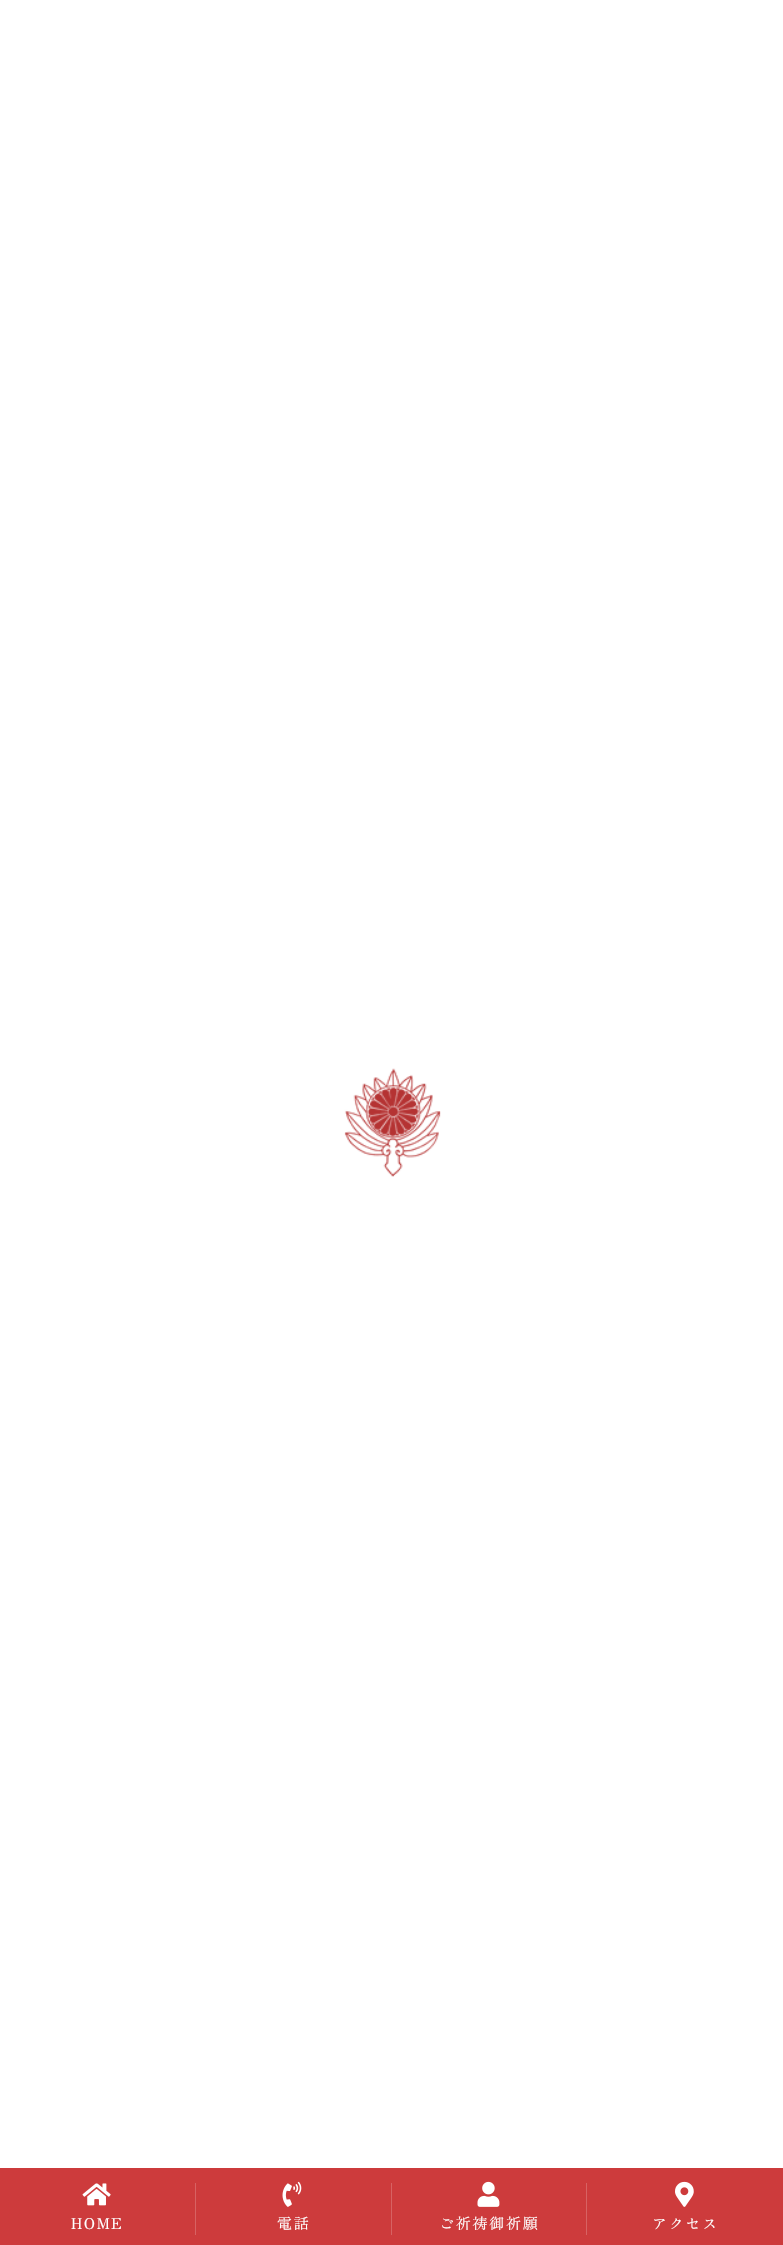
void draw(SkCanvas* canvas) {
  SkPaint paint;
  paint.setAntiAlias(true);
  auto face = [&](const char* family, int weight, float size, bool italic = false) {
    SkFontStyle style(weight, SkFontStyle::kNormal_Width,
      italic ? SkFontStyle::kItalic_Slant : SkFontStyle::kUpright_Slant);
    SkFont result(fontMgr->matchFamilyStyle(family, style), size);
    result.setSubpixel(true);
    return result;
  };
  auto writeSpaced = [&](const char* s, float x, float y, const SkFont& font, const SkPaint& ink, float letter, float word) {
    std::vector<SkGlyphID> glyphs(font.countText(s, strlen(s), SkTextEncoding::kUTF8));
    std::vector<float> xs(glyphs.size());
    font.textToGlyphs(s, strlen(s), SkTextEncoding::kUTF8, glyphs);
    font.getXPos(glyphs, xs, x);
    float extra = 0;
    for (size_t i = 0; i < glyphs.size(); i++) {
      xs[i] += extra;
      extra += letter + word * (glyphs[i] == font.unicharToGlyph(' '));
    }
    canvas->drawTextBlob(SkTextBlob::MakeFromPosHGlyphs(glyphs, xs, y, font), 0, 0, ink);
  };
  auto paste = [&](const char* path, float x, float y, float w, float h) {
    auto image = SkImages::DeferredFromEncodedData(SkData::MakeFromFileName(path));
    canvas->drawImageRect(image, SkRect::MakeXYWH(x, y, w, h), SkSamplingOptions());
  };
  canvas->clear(0xffffffff);
  paste("img/1.png", 344, 1068, 97, 109);
  paint.setColor(0xffcd3b3c);
  canvas->drawRect(SkRect::MakeXYWH(0, 2168, 783, 77), paint);
  paint.setColor(0xffd76263);
  canvas->drawRect(SkRect::MakeXYWH(195, 2183, 1, 52), paint);
  paste("img/2.png", 82, 2183, 29, 23);
  canvas->drawRect(SkRect::MakeXYWH(391, 2183, 1, 52), paint);
  paste("img/3.png", 282, 2181, 20, 26);
  canvas->drawRect(SkRect::MakeXYWH(586, 2183, 1, 52), paint);
  paste("img/4.png", 477, 2181, 23, 26);
  paste("img/5.png", 675, 2181, 19, 26);
  auto f0 = face("Zen Old Mincho", 400, 15);
  paint.setColor(0xffffffff);
  {
    const struct { const char* s; float x, y; } items[] = {
      {"HOME", 71, 2229},
      {"電話", 277, 2229},
      {"ご祈祷御祈願", 439, 2229},
      {"アクセス", 652, 2229},
    };
    for (auto [s, x, y] : items) {
      writeSpaced(s, x, y, f0, paint, 1.75f, 0);
    }
  }
}
